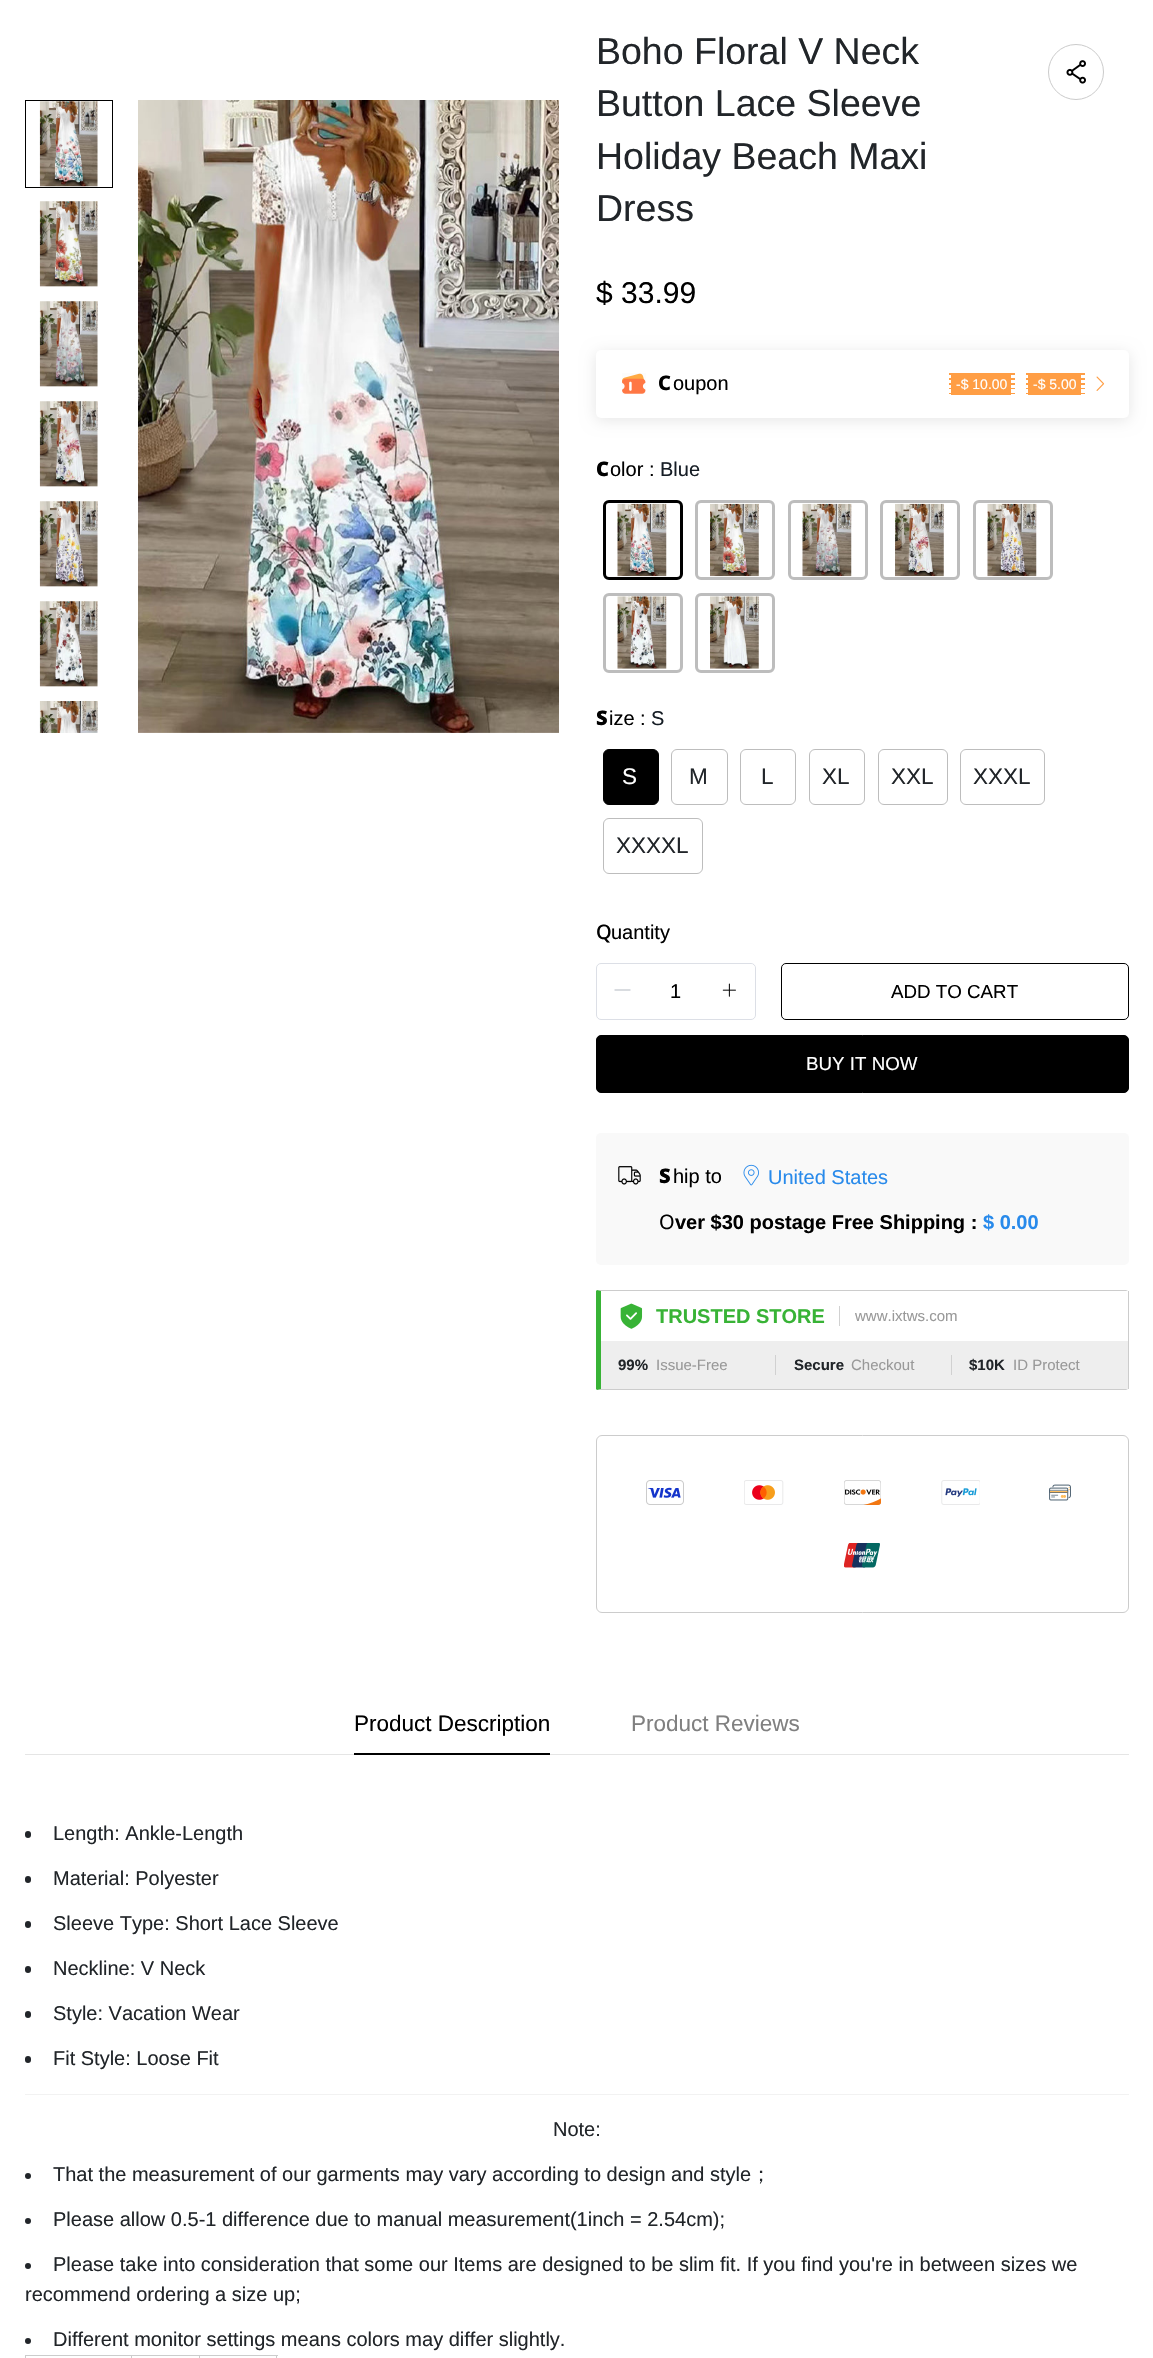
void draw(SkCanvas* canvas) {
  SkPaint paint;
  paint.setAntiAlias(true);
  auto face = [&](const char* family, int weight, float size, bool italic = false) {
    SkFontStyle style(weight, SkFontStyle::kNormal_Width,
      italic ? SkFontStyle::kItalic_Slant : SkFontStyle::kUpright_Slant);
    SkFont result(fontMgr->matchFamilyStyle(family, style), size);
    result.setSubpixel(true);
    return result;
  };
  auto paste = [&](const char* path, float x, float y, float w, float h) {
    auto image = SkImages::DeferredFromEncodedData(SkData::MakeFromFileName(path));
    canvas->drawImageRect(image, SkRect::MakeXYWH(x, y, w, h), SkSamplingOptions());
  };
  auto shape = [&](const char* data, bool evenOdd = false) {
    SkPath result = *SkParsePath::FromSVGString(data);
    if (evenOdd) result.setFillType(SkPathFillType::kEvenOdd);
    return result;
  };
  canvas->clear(0xffffffff);
  paint.setStroke(true);
  paint.setStrokeWidth(1);
  paint.setColor(0xff000000);
  canvas->drawRect(SkRect::MakeXYWH(25.5f, 100.5f, 87, 87), paint);
  paste("img/1.png", 39, 101, 59, 86);
  paste("img/2.png", 39, 201, 59, 86);
  paste("img/3.png", 39, 301, 59, 86);
  paste("img/4.png", 39, 401, 59, 86);
  paste("img/5.png", 39, 501, 59, 86);
  paste("img/6.png", 39, 601, 59, 86);
  paste("img/7.png", 39, 701, 59, 32);
  paste("img/8.png", 138, 100, 421, 633);
  paint.setColor(0xffcbcbcb);
  canvas->drawCircle(1076, 72, 27.5f, paint);
  paste("img/9.png", 1066, 60, 20, 24);
  paint.setStroke(false);
  paint.setColor(0x1a000000);
  paint.setMaskFilter(SkMaskFilter::MakeBlur(kNormal_SkBlurStyle, 7.5f));
  canvas->drawRoundRect(SkRect::MakeXYWH(596, 353, 533, 67), 5, 5, paint);
  paint.setMaskFilter(nullptr);
  paint.setColor(0xffffffff);
  canvas->drawRoundRect(SkRect::MakeXYWH(596, 350, 533, 68), 5, 5, paint);
  paste("img/10.png", 622, 373, 24, 21);
  paint.setColor(0xffff9e45);
  canvas->drawRect(SkRect::MakeXYWH(954, 373, 57, 22), paint);
  {
    const SkColor colors[] = {0x00ff9e45, 0xffff9e45};
    const float stops[] = {1, 1};
    paint.setShader(SkGradientShader::MakeRadial({949, 377}, 2.4f, colors, stops, 2, SkTileMode::kClamp));
    paint.setAlpha(255);
  }
  canvas->drawRect(SkRect::MakeXYWH(949, 373, 5, 5), paint);
  {
    const SkColor colors[] = {0x00ff9e45, 0xffff9e45};
    const float stops[] = {1, 1};
    paint.setShader(SkGradientShader::MakeRadial({949, 381}, 2.4f, colors, stops, 2, SkTileMode::kClamp));
    paint.setAlpha(255);
  }
  canvas->drawRect(SkRect::MakeXYWH(949, 380, 5, 3), paint);
  {
    const SkColor colors[] = {0x00ff9e45, 0xffff9e45};
    const float stops[] = {1, 1};
    paint.setShader(SkGradientShader::MakeRadial({949, 386}, 2.4f, colors, stops, 2, SkTileMode::kClamp));
    paint.setAlpha(255);
  }
  canvas->drawRect(SkRect::MakeXYWH(949, 385, 5, 3), paint);
  {
    const SkColor colors[] = {0x00ff9e45, 0xffff9e45};
    const float stops[] = {1, 1};
    paint.setShader(SkGradientShader::MakeRadial({949, 391}, 2.4f, colors, stops, 2, SkTileMode::kClamp));
    paint.setAlpha(255);
  }
  canvas->drawRect(SkRect::MakeXYWH(949, 388, 5, 5), paint);
  {
    const SkColor colors[] = {0x00ff9e45, 0xffff9e45};
    const float stops[] = {1, 1};
    paint.setShader(SkGradientShader::MakeRadial({949, 396}, 2.4f, colors, stops, 2, SkTileMode::kClamp));
    paint.setAlpha(255);
  }
  canvas->drawRect(SkRect::MakeXYWH(949, 393, 5, 2), paint);
  {
    const SkColor colors[] = {0xffff9e45, 0x00ff9e45, 0x00000000};
    const float stops[] = {0.5f, 0.5f, 1};
    const SkPoint ends[] = {{951, 378}, {951, 383}};
    paint.setShader(SkGradientShader::MakeLinear(ends, colors, stops, 3, SkTileMode::kClamp));
    paint.setAlpha(255);
  }
  canvas->drawRect(SkRect::MakeXYWH(949, 378, 5, 2), paint);
  {
    const SkColor colors[] = {0xffff9e45, 0x00ff9e45, 0x00000000};
    const float stops[] = {0.5f, 0.5f, 1};
    const SkPoint ends[] = {{951, 383}, {951, 387}};
    paint.setShader(SkGradientShader::MakeLinear(ends, colors, stops, 3, SkTileMode::kClamp));
    paint.setAlpha(255);
  }
  canvas->drawRect(SkRect::MakeXYWH(949, 383, 5, 2), paint);
  {
    const SkColor colors[] = {0xffff9e45, 0x00ff9e45, 0x00000000};
    const float stops[] = {0.5f, 0.5f, 1};
    const SkPoint ends[] = {{1013, 373}, {1013, 378}};
    paint.setShader(SkGradientShader::MakeLinear(ends, colors, stops, 3, SkTileMode::kClamp));
    paint.setAlpha(255);
  }
  canvas->drawRect(SkRect::MakeXYWH(1010, 373, 5, 2), paint);
  {
    const SkColor colors[] = {0xffff9e45, 0x00ff9e45, 0x00000000};
    const float stops[] = {0.5f, 0.5f, 1};
    const SkPoint ends[] = {{1013, 378}, {1013, 383}};
    paint.setShader(SkGradientShader::MakeLinear(ends, colors, stops, 3, SkTileMode::kClamp));
    paint.setAlpha(255);
  }
  canvas->drawRect(SkRect::MakeXYWH(1010, 378, 5, 2), paint);
  {
    const SkColor colors[] = {0xffff9e45, 0x00ff9e45, 0x00000000};
    const float stops[] = {0.5f, 0.5f, 1};
    const SkPoint ends[] = {{1013, 383}, {1013, 387}};
    paint.setShader(SkGradientShader::MakeLinear(ends, colors, stops, 3, SkTileMode::kClamp));
    paint.setAlpha(255);
  }
  canvas->drawRect(SkRect::MakeXYWH(1010, 383, 5, 2), paint);
  {
    const SkColor colors[] = {0xffff9e45, 0x00ff9e45, 0x00000000};
    const float stops[] = {0.5f, 0.5f, 1};
    const SkPoint ends[] = {{1013, 387}, {1013, 392}};
    paint.setShader(SkGradientShader::MakeLinear(ends, colors, stops, 3, SkTileMode::kClamp));
    paint.setAlpha(255);
  }
  canvas->drawRect(SkRect::MakeXYWH(1010, 388, 5, 1), paint);
  {
    const SkColor colors[] = {0xffff9e45, 0x00ff9e45, 0x00000000};
    const float stops[] = {0.5f, 0.5f, 1};
    const SkPoint ends[] = {{1013, 392}, {1013, 397}};
    paint.setShader(SkGradientShader::MakeLinear(ends, colors, stops, 3, SkTileMode::kClamp));
    paint.setAlpha(255);
  }
  canvas->drawRect(SkRect::MakeXYWH(1010, 393, 5, 1), paint);
  paint.setShader(nullptr);
  paint.setColor(0xffff9e45);
  canvas->drawRect(SkRect::MakeXYWH(1031, 373, 50, 22), paint);
  {
    const SkColor colors[] = {0x00ff9e45, 0xffff9e45};
    const float stops[] = {1, 1};
    paint.setShader(SkGradientShader::MakeRadial({1026, 377}, 2.4f, colors, stops, 2, SkTileMode::kClamp));
    paint.setAlpha(255);
  }
  canvas->drawRect(SkRect::MakeXYWH(1026, 373, 5, 5), paint);
  {
    const SkColor colors[] = {0x00ff9e45, 0xffff9e45};
    const float stops[] = {1, 1};
    paint.setShader(SkGradientShader::MakeRadial({1026, 381}, 2.4f, colors, stops, 2, SkTileMode::kClamp));
    paint.setAlpha(255);
  }
  canvas->drawRect(SkRect::MakeXYWH(1026, 380, 5, 3), paint);
  {
    const SkColor colors[] = {0x00ff9e45, 0xffff9e45};
    const float stops[] = {1, 1};
    paint.setShader(SkGradientShader::MakeRadial({1026, 386}, 2.4f, colors, stops, 2, SkTileMode::kClamp));
    paint.setAlpha(255);
  }
  canvas->drawRect(SkRect::MakeXYWH(1026, 385, 5, 3), paint);
  {
    const SkColor colors[] = {0x00ff9e45, 0xffff9e45};
    const float stops[] = {1, 1};
    paint.setShader(SkGradientShader::MakeRadial({1026, 391}, 2.4f, colors, stops, 2, SkTileMode::kClamp));
    paint.setAlpha(255);
  }
  canvas->drawRect(SkRect::MakeXYWH(1026, 388, 5, 5), paint);
  {
    const SkColor colors[] = {0x00ff9e45, 0xffff9e45};
    const float stops[] = {1, 1};
    paint.setShader(SkGradientShader::MakeRadial({1026, 396}, 2.4f, colors, stops, 2, SkTileMode::kClamp));
    paint.setAlpha(255);
  }
  canvas->drawRect(SkRect::MakeXYWH(1026, 393, 5, 2), paint);
  {
    const SkColor colors[] = {0xffff9e45, 0x00ff9e45, 0x00000000};
    const float stops[] = {0.5f, 0.5f, 1};
    const SkPoint ends[] = {{1028, 378}, {1028, 383}};
    paint.setShader(SkGradientShader::MakeLinear(ends, colors, stops, 3, SkTileMode::kClamp));
    paint.setAlpha(255);
  }
  canvas->drawRect(SkRect::MakeXYWH(1026, 378, 5, 2), paint);
  {
    const SkColor colors[] = {0xffff9e45, 0x00ff9e45, 0x00000000};
    const float stops[] = {0.5f, 0.5f, 1};
    const SkPoint ends[] = {{1028, 383}, {1028, 387}};
    paint.setShader(SkGradientShader::MakeLinear(ends, colors, stops, 3, SkTileMode::kClamp));
    paint.setAlpha(255);
  }
  canvas->drawRect(SkRect::MakeXYWH(1026, 383, 5, 2), paint);
  {
    const SkColor colors[] = {0xffff9e45, 0x00ff9e45, 0x00000000};
    const float stops[] = {0.5f, 0.5f, 1};
    const SkPoint ends[] = {{1082, 373}, {1082, 378}};
    paint.setShader(SkGradientShader::MakeLinear(ends, colors, stops, 3, SkTileMode::kClamp));
    paint.setAlpha(255);
  }
  canvas->drawRect(SkRect::MakeXYWH(1080, 373, 5, 2), paint);
  {
    const SkColor colors[] = {0xffff9e45, 0x00ff9e45, 0x00000000};
    const float stops[] = {0.5f, 0.5f, 1};
    const SkPoint ends[] = {{1082, 378}, {1082, 383}};
    paint.setShader(SkGradientShader::MakeLinear(ends, colors, stops, 3, SkTileMode::kClamp));
    paint.setAlpha(255);
  }
  canvas->drawRect(SkRect::MakeXYWH(1080, 378, 5, 2), paint);
  {
    const SkColor colors[] = {0xffff9e45, 0x00ff9e45, 0x00000000};
    const float stops[] = {0.5f, 0.5f, 1};
    const SkPoint ends[] = {{1082, 383}, {1082, 387}};
    paint.setShader(SkGradientShader::MakeLinear(ends, colors, stops, 3, SkTileMode::kClamp));
    paint.setAlpha(255);
  }
  canvas->drawRect(SkRect::MakeXYWH(1080, 383, 5, 2), paint);
  {
    const SkColor colors[] = {0xffff9e45, 0x00ff9e45, 0x00000000};
    const float stops[] = {0.5f, 0.5f, 1};
    const SkPoint ends[] = {{1082, 387}, {1082, 392}};
    paint.setShader(SkGradientShader::MakeLinear(ends, colors, stops, 3, SkTileMode::kClamp));
    paint.setAlpha(255);
  }
  canvas->drawRect(SkRect::MakeXYWH(1080, 388, 5, 1), paint);
  {
    const SkColor colors[] = {0xffff9e45, 0x00ff9e45, 0x00000000};
    const float stops[] = {0.5f, 0.5f, 1};
    const SkPoint ends[] = {{1082, 392}, {1082, 397}};
    paint.setShader(SkGradientShader::MakeLinear(ends, colors, stops, 3, SkTileMode::kClamp));
    paint.setAlpha(255);
  }
  canvas->drawRect(SkRect::MakeXYWH(1080, 393, 5, 1), paint);
  paste("img/11.png", 1096, 376, 9, 15);
  paint.setStroke(true);
  paint.setStrokeWidth(3);
  paint.setShader(nullptr);
  paint.setColor(0xff000000);
  canvas->drawRoundRect(SkRect::MakeXYWH(604.5f, 501.5f, 77, 77), 4.5f, 4.5f, paint);
  paste("img/12.png", 617, 503, 50, 74);
  paint.setColor(0xffbdbdbd);
  canvas->drawRoundRect(SkRect::MakeXYWH(696.5f, 501.5f, 77, 77), 4.5f, 4.5f, paint);
  paste("img/13.png", 710, 503, 49, 74);
  canvas->drawRoundRect(SkRect::MakeXYWH(789.5f, 501.5f, 77, 77), 4.5f, 4.5f, paint);
  paste("img/14.png", 802, 503, 50, 74);
  canvas->drawRoundRect(SkRect::MakeXYWH(881.5f, 501.5f, 77, 77), 4.5f, 4.5f, paint);
  paste("img/15.png", 895, 503, 49, 74);
  canvas->drawRoundRect(SkRect::MakeXYWH(974.5f, 501.5f, 77, 77), 4.5f, 4.5f, paint);
  paste("img/16.png", 987, 503, 50, 74);
  canvas->drawRoundRect(SkRect::MakeXYWH(604.5f, 594.5f, 77, 77), 4.5f, 4.5f, paint);
  paste("img/17.png", 617, 596, 50, 73);
  canvas->drawRoundRect(SkRect::MakeXYWH(696.5f, 594.5f, 77, 77), 4.5f, 4.5f, paint);
  paste("img/18.png", 710, 596, 49, 73);
  paint.setStroke(false);
  paint.setColor(0xff000000);
  canvas->drawRoundRect(SkRect::MakeXYWH(603.5f, 749.5f, 55, 55), 5.5f, 5.5f, paint);
  paint.setStroke(true);
  paint.setStrokeWidth(1);
  canvas->drawRoundRect(SkRect::MakeXYWH(603.5f, 749.5f, 55, 55), 5.5f, 5.5f, paint);
  paint.setColor(0xffbdbdbd);
  canvas->drawRoundRect(SkRect::MakeXYWH(671.5f, 749.5f, 56, 55), 5.5f, 5.5f, paint);
  canvas->drawRoundRect(SkRect::MakeXYWH(740.5f, 749.5f, 55, 55), 5.5f, 5.5f, paint);
  canvas->drawRoundRect(SkRect::MakeXYWH(809.5f, 749.5f, 55, 55), 5.5f, 5.5f, paint);
  canvas->drawRoundRect(SkRect::MakeXYWH(878.5f, 749.5f, 69, 55), 5.5f, 5.5f, paint);
  canvas->drawRoundRect(SkRect::MakeXYWH(960.5f, 749.5f, 84, 55), 5.5f, 5.5f, paint);
  canvas->drawRoundRect(SkRect::MakeXYWH(603.5f, 818.5f, 99, 55), 5.5f, 5.5f, paint);
  paint.setColor(0xffdcdfe6);
  canvas->drawRoundRect(SkRect::MakeXYWH(596.5f, 963.5f, 159, 56), 4.5f, 4.5f, paint);
  paste("img/19.png", 614, 989, 17, 2);
  paint.setStroke(false);
  paint.setColor(0xffffffff);
  canvas->drawPath(shape("M705 964H750C753 964 755 966 755 969V1013C755 1016 753 1018 750 1018H705Z"), paint);
  paste("img/20.png", 722, 983, 14, 14);
  paint.setStroke(true);
  paint.setColor(0xff000000);
  canvas->drawRoundRect(SkRect::MakeXYWH(781.5f, 963.5f, 347, 56), 4.5f, 4.5f, paint);
  paint.setStroke(false);
  canvas->drawRoundRect(SkRect::MakeXYWH(596.5f, 1035.5f, 532, 57), 4.5f, 4.5f, paint);
  paint.setStroke(true);
  canvas->drawRoundRect(SkRect::MakeXYWH(596.5f, 1035.5f, 532, 57), 4.5f, 4.5f, paint);
  paint.setStroke(false);
  paint.setColor(0xfff9f9f9);
  canvas->drawRoundRect(SkRect::MakeXYWH(596, 1133, 533, 132), 5, 5, paint);
  paste("img/21.png", 618, 1166, 23, 19);
  paste("img/22.png", 743, 1164, 16, 22);
  paint.setColor(0xffcccccc);
  canvas->drawPath(shape("M599 1290H597L601 1291H1126H1127H1128L1126 1290Z"), paint);
  canvas->drawPath(shape("M1129 1389H1128H1127L1128 1388V1292L1127 1291H1128H1129Z"), paint);
  canvas->drawPath(shape("M599 1390H1126L1128 1389H1127H1126H601L597 1390Z"), paint);
  paint.setColor(0xff38b336);
  canvas->drawPath(shape("M596 1291L597 1290L601 1291V1389L597 1390L596 1389Z"), paint);
  paint.setColor(0xffffffff);
  canvas->drawRect(SkRect::MakeXYWH(1127, 1291, 1, 1), paint);
  paste("img/23.png", 620, 1303, 23, 26);
  {
    const struct { float x, y, w, h; SkColor color; } items[] = {
      {839, 1306, 1, 20, 0xffd1d1d1},
      {601, 1341, 527, 48, 0xffeeeeee},
      {775, 1355, 1, 20, 0xffd1d1d1},
      {951, 1355, 1, 20, 0xffd1d1d1},
    };
    for (auto [x, y, w, h, color] : items) {
      paint.setColor(color);
      canvas->drawRect(SkRect::MakeXYWH(x, y, w, h), paint);
    }
  }
  paint.setStroke(true);
  paint.setColor(0xffcccccc);
  canvas->drawRoundRect(SkRect::MakeXYWH(596.5f, 1435.5f, 532, 177), 5.5f, 5.5f, paint);
  paste("img/24.png", 646, 1480, 38, 25);
  paste("img/25.png", 744, 1480, 40, 25);
  paste("img/26.png", 844, 1480, 37, 25);
  paste("img/27.png", 941, 1480, 39, 25);
  paste("img/28.png", 1049, 1484, 22, 17);
  paste("img/29.png", 844, 1543, 36, 25);
  paint.setStroke(false);
  paint.setColor(0xffe5e5e5);
  canvas->drawRect(SkRect::MakeXYWH(25, 1754, 1104, 1), paint);
  paint.setColor(0xff000000);
  canvas->drawRect(SkRect::MakeXYWH(354, 1753, 196, 2), paint);
  paint.setColor(0xff212529);
  canvas->drawRoundRect(SkRect::MakeXYWH(25, 1831, 6, 7), 3, 3, paint);
  canvas->drawRoundRect(SkRect::MakeXYWH(25, 1876, 6, 7), 3, 3, paint);
  canvas->drawRoundRect(SkRect::MakeXYWH(25, 1921, 6, 7), 3, 3, paint);
  canvas->drawRoundRect(SkRect::MakeXYWH(25, 1966, 6, 7), 3, 3, paint);
  canvas->drawRoundRect(SkRect::MakeXYWH(25, 2011, 6, 7), 3, 3, paint);
  canvas->drawRoundRect(SkRect::MakeXYWH(25, 2056, 6, 7), 3, 3, paint);
  paint.setColor(0xfff2f2f2);
  canvas->drawRect(SkRect::MakeXYWH(25, 2094, 1104, 1), paint);
  paint.setColor(0xff212529);
  canvas->drawCircle(28, 2176, 3, paint);
  canvas->drawCircle(28, 2221, 3, paint);
  canvas->drawCircle(28, 2266, 3, paint);
  canvas->drawCircle(28, 2341, 3, paint);
  {
    const struct { float x, y, w, h; SkColor color; } items[] = {
      {199, 2355, 79, 1, 0xffcccccc},
      {199, 2355, 1, 3, 0xffcccccc},
      {131, 2355, 69, 1, 0xffcccccc},
      {131, 2355, 1, 3, 0xffcccccc},
      {25, 2355, 108, 1, 0xffcccccc},
      {25, 2355, 1, 3, 0xffcccccc},
      {276, 2355, 1, 3, 0xffcccccc},
    };
    for (auto [x, y, w, h, color] : items) {
      paint.setColor(color);
      canvas->drawRect(SkRect::MakeXYWH(x, y, w, h), paint);
    }
  }
  auto f0 = face("Liberation Sans", 400, 37.5f);
  paint.setColor(0xff212529);
  {
    const struct { const char* s; float x, y; } items[] = {
      {"Boho Floral V Neck", 596, 64},
      {"Button Lace Sleeve", 596, 116},
      {"Holiday Beach Maxi", 596, 169},
      {"Dress", 596, 221},
    };
    for (auto [s, x, y] : items) {
      canvas->drawString(s, x, y, f0, paint);
    }
  }
  auto f1 = face("Liberation Sans", 400, 30);
  paint.setColor(0xff000000);
  canvas->drawString("$ 33.99", 596, 303, f1, paint);
  auto f2 = face("Noto Sans", 800, 20);
  canvas->drawString("C", 658, 390, f2, paint);
  auto f3 = face("Liberation Sans", 400, 20);
  canvas->drawString("oupon", 673, 390, f3, paint);
  auto f4 = face("Liberation Sans", 400, 14);
  paint.setColor(0xffffffff);
  canvas->drawString("-$ 10.00", 956, 389, f4, paint);
  canvas->drawString("-$ 5.00", 1033, 389, f4, paint);
  auto f5 = face("Noto Sans", 900, 20);
  paint.setColor(0xff000000);
  canvas->drawString("C", 596, 476, f5, paint);
  canvas->drawString("olor :", 610, 476, f3, paint);
  paint.setColor(0xff161d25);
  canvas->drawString("Blue", 660, 476, f3, paint);
  paint.setColor(0xff000000);
  canvas->drawString("S", 596, 725, f5, paint);
  canvas->drawString("ize :", 609, 725, f3, paint);
  paint.setColor(0xff161d25);
  canvas->drawString("S", 651, 725, f3, paint);
  auto f6 = face("Liberation Sans", 400, 22.5f);
  paint.setColor(0xffffffff);
  canvas->drawString("S", 622, 784, f6, paint);
  paint.setColor(0xff212529);
  {
    const struct { const char* s; float x, y; } items[] = {
      {"M", 689, 784},
      {"L", 761, 784},
      {"XL", 822, 784},
      {"XXL", 891, 784},
      {"XXXL", 973, 784},
      {"XXXXL", 616, 853},
    };
    for (auto [s, x, y] : items) {
      canvas->drawString(s, x, y, f6, paint);
    }
  }
  auto f7 = face("Noto Sans", 500, 20);
  paint.setColor(0xff000000);
  canvas->drawString("Q", 596, 939, f7, paint);
  canvas->drawString("uantity", 611, 939, f3, paint);
  canvas->drawString("1", 670, 998, f3, paint);
  auto f8 = face("Liberation Sans", 400, 18.75f);
  canvas->drawString("ADD TO CART", 891, 998, f8, paint);
  paint.setColor(0xffffffff);
  canvas->drawString("BUY IT NOW", 806, 1070, f8, paint);
  paint.setColor(0xff000000);
  canvas->drawString("S", 659, 1183, f5, paint);
  canvas->drawString("hip to", 673, 1183, f3, paint);
  paint.setColor(0xff288aeb);
  canvas->drawString("United States", 768, 1184, f3, paint);
  auto f9 = face("Noto Sans", 400, 20);
  paint.setColor(0xff000000);
  canvas->drawString("O", 659, 1229, f9, paint);
  auto f10 = face("Liberation Sans", 700, 20);
  canvas->drawString("ver $30 postage Free Shipping :", 675, 1229, f10, paint);
  paint.setColor(0xff288aeb);
  canvas->drawString("$ 0.00", 983, 1229, f10, paint);
  paint.setColor(0xff38b336);
  canvas->drawString("TRUSTED STORE", 656, 1323, f10, paint);
  auto f11 = face("Liberation Sans", 400, 15);
  paint.setColor(0xff999999);
  canvas->drawString("www.ixtws.com", 855, 1321, f11, paint);
  auto f12 = face("Liberation Sans", 700, 15);
  paint.setColor(0xff212529);
  canvas->drawString("99%", 618, 1370, f12, paint);
  paint.setColor(0xff999999);
  canvas->drawString("Issue-Free", 656, 1370, f11, paint);
  paint.setColor(0xff212529);
  canvas->drawString("Secure", 794, 1370, f12, paint);
  paint.setColor(0xff999999);
  canvas->drawString("Checkout", 851, 1370, f11, paint);
  paint.setColor(0xff212529);
  canvas->drawString("$10K", 969, 1370, f12, paint);
  paint.setColor(0xff999999);
  canvas->drawString("ID Protect", 1013, 1370, f11, paint);
  paint.setColor(0xff000000);
  canvas->drawString("Product Description", 354, 1731, f6, paint);
  paint.setColor(0xff808080);
  canvas->drawString("Product Reviews", 631, 1731, f6, paint);
  paint.setColor(0xff212529);
  {
    const struct { const char* s; float x, y; } items[] = {
      {"Length: Ankle-Length", 53, 1840},
      {"Material: Polyester", 53, 1885},
      {"Sleeve Type: Short Lace Sleeve", 53, 1930},
      {"Neckline: V Neck", 53, 1975},
      {"Style: Vacation Wear", 53, 2020},
      {"Fit Style: Loose Fit", 53, 2065},
      {"Note:", 553, 2136},
      {"That the measurement of our garments may vary according to design and style", 53, 2181},
    };
    for (auto [s, x, y] : items) {
      canvas->drawString(s, x, y, f3, paint);
    }
  }
  auto f13 = face("WenQuanYi Zen Hei", 500, 20);
  canvas->drawString("；", 751, 2181, f13, paint);
  {
    const struct { const char* s; float x, y; } items[] = {
      {"Please allow 0.5-1 difference due to manual measurement(1inch = 2.54cm);", 53, 2226},
      {"Please take into consideration that some our Items are designed to be slim fit. If you find you're in between sizes we", 53, 2271},
      {"recommend ordering a size up;", 25, 2301},
      {"Different monitor settings means colors may differ slightly.", 53, 2346},
    };
    for (auto [s, x, y] : items) {
      canvas->drawString(s, x, y, f3, paint);
    }
  }
}
